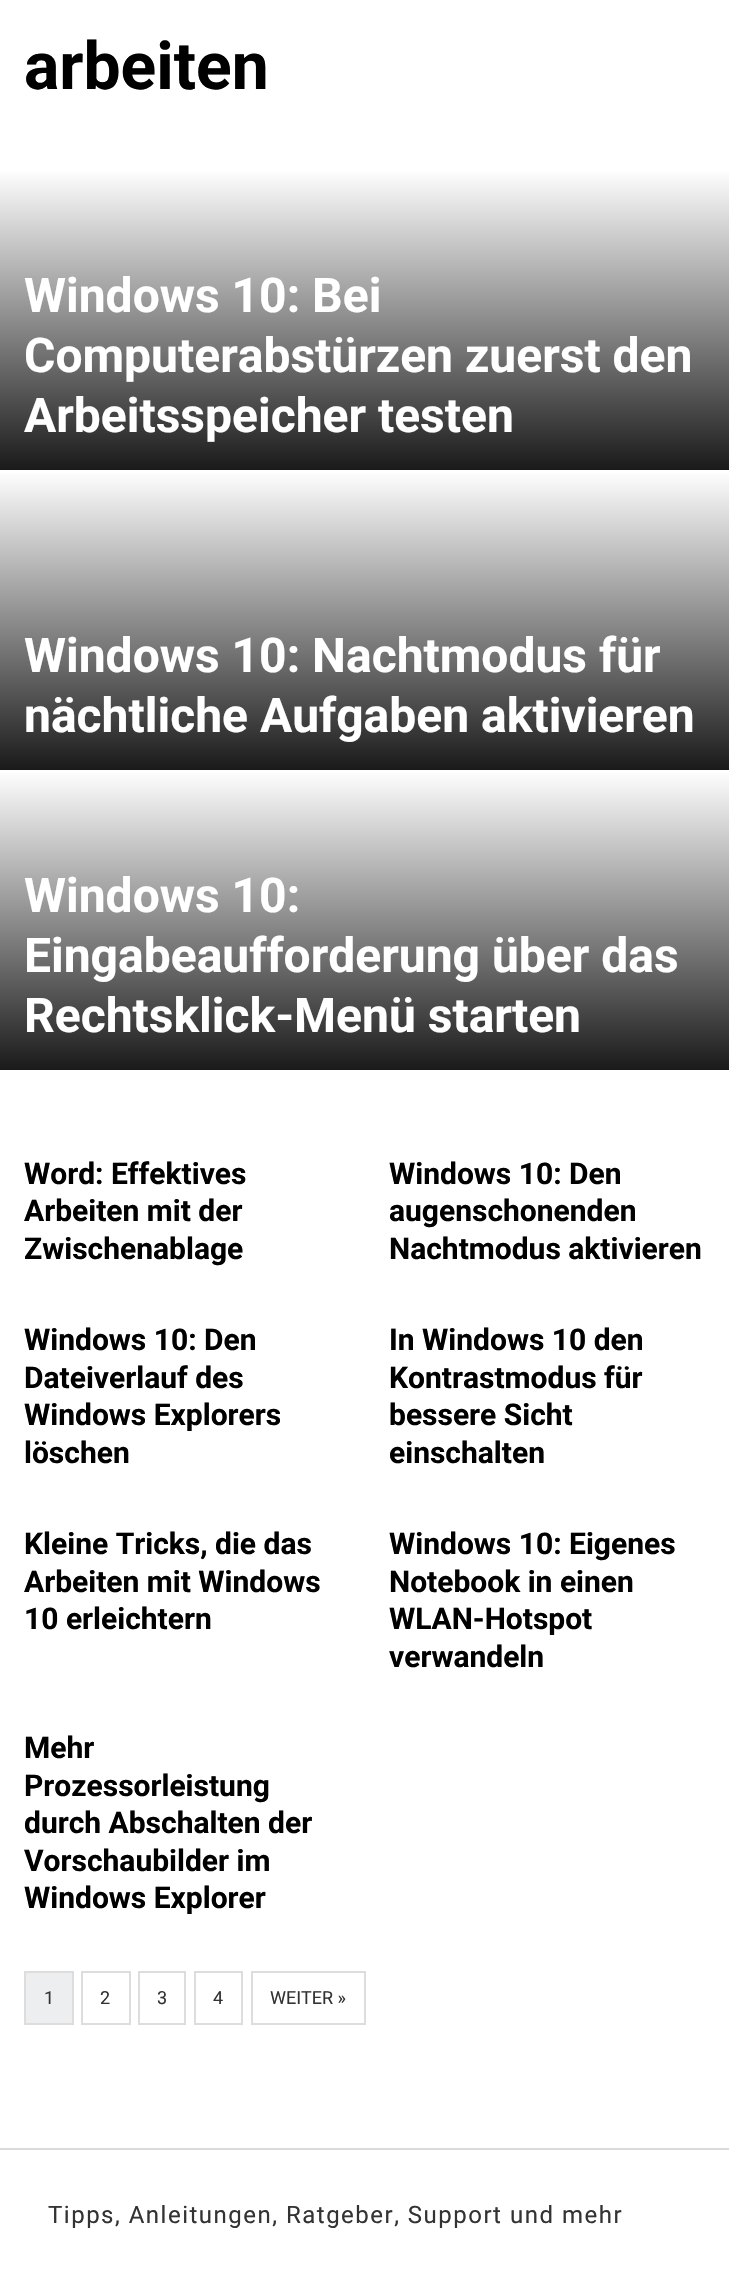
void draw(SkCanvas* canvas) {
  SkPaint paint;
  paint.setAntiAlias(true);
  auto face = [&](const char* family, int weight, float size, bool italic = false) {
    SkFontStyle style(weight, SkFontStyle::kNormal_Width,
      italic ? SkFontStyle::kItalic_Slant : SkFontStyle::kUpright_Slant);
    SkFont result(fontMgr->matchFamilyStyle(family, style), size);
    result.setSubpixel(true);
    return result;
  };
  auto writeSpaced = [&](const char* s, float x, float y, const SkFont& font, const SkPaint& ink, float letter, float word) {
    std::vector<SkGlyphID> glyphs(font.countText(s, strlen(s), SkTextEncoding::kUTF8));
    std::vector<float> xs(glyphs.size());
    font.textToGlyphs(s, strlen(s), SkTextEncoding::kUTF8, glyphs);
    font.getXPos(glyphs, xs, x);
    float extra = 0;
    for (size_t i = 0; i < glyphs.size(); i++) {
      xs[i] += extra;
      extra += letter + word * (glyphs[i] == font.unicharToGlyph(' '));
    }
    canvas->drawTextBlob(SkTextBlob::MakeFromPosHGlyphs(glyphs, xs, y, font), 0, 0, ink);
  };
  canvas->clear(0xffffffff);
  {
    const SkColor colors[] = {0xffffffff, 0xff1a1a1a};
    const float stops[] = {0, 1};
    const SkPoint ends[] = {{365, 169}, {365, 470}};
    paint.setShader(SkGradientShader::MakeLinear(ends, colors, stops, 2, SkTileMode::kClamp));
    paint.setAlpha(255);
  }
  canvas->drawRect(SkRect::MakeXYWH(0, 172, 729, 298), paint);
  {
    const SkColor colors[] = {0xffffffff, 0xff1a1a1a};
    const float stops[] = {0, 1};
    const SkPoint ends[] = {{365, 470}, {365, 770}};
    paint.setShader(SkGradientShader::MakeLinear(ends, colors, stops, 2, SkTileMode::kClamp));
    paint.setAlpha(255);
  }
  canvas->drawRect(SkRect::MakeXYWH(0, 473, 729, 297), paint);
  {
    const SkColor colors[] = {0xffffffff, 0xff1a1a1a};
    const float stops[] = {0, 1};
    const SkPoint ends[] = {{365, 770}, {365, 1070}};
    paint.setShader(SkGradientShader::MakeLinear(ends, colors, stops, 2, SkTileMode::kClamp));
    paint.setAlpha(255);
  }
  canvas->drawRect(SkRect::MakeXYWH(0, 773, 729, 297), paint);
  paint.setShader(nullptr);
  paint.setColor(0xffeceeef);
  canvas->drawRect(SkRect::MakeXYWH(25, 1972, 48, 52), paint);
  paint.setStroke(true);
  paint.setStrokeWidth(2);
  paint.setColor(0xffdddddd);
  canvas->drawRect(SkRect::MakeXYWH(25, 1972, 48, 52), paint);
  canvas->drawRect(SkRect::MakeXYWH(82, 1972, 48, 52), paint);
  canvas->drawRect(SkRect::MakeXYWH(139, 1972, 46, 52), paint);
  canvas->drawRect(SkRect::MakeXYWH(195, 1972, 47, 52), paint);
  canvas->drawRect(SkRect::MakeXYWH(252, 1972, 113, 52), paint);
  paint.setStroke(false);
  paint.setColor(0xffdbdbdb);
  canvas->drawRect(SkRect::MakeXYWH(0, 2148, 729, 2), paint);
  auto f0 = face("Roboto", 700, 66);
  paint.setColor(0xff000000);
  canvas->drawString("arbeiten", 24, 89, f0, paint);
  auto f1 = face("Roboto", 700, 48);
  paint.setColor(0xffffffff);
  {
    const struct { const char* s; float x, y; } items[] = {
      {"Windows 10: Bei", 24, 312},
      {"Computerabstürzen zuerst den", 24, 372},
      {"Arbeitsspeicher testen", 24, 432},
      {"Windows 10: Nachtmodus für", 24, 672},
      {"nächtliche Aufgaben aktivieren", 24, 732},
      {"Windows 10:", 24, 912},
      {"Eingabeaufforderung über das", 24, 972},
      {"Rechtsklick-Menü starten", 24, 1032},
    };
    for (auto [s, x, y] : items) {
      canvas->drawString(s, x, y, f1, paint);
    }
  }
  auto f2 = face("Roboto", 700, 30);
  paint.setColor(0xff000000);
  {
    const struct { const char* s; float x, y; } items[] = {
      {"Word: Effektives", 24, 1184},
      {"Arbeiten mit der", 24, 1221},
      {"Zwischenablage", 24, 1259},
      {"Windows 10: Den", 389, 1184},
      {"augenschonenden", 389, 1221},
      {"Nachtmodus aktivieren", 389, 1259},
      {"Windows 10: Den", 24, 1350},
      {"Dateiverlauf des", 24, 1388},
      {"Windows Explorers", 24, 1425},
      {"löschen", 24, 1463},
      {"In Windows 10 den", 389, 1350},
      {"Kontrastmodus für", 389, 1388},
      {"bessere Sicht", 389, 1425},
      {"einschalten", 389, 1463},
      {"Kleine Tricks, die das", 24, 1554},
      {"Arbeiten mit Windows", 24, 1592},
      {"10 erleichtern", 24, 1629},
      {"Windows 10: Eigenes", 389, 1554},
      {"Notebook in einen", 389, 1592},
      {"WLAN-Hotspot", 389, 1629},
      {"verwandeln", 389, 1667},
      {"Mehr", 24, 1758},
      {"Prozessorleistung", 24, 1796},
      {"durch Abschalten der", 24, 1833},
      {"Vorschaubilder im", 24, 1871},
      {"Windows Explorer", 24, 1908},
    };
    for (auto [s, x, y] : items) {
      canvas->drawString(s, x, y, f2, paint);
    }
  }
  auto f3 = face("Roboto", 400, 18);
  paint.setColor(0xff333333);
  {
    const struct { const char* s; float x, y; } items[] = {
      {"1", 44, 2004},
      {"2", 100, 2004},
      {"3", 157, 2004},
      {"4", 213, 2004},
      {"WEITER »", 270, 2004},
    };
    for (auto [s, x, y] : items) {
      canvas->drawString(s, x, y, f3, paint);
    }
  }
  auto f4 = face("Roboto", 400, 24);
  writeSpaced("Tipps, Anleitungen, Ratgeber, Support und mehr", 48, 2223, f4, paint, 1.5f, 0);
}
